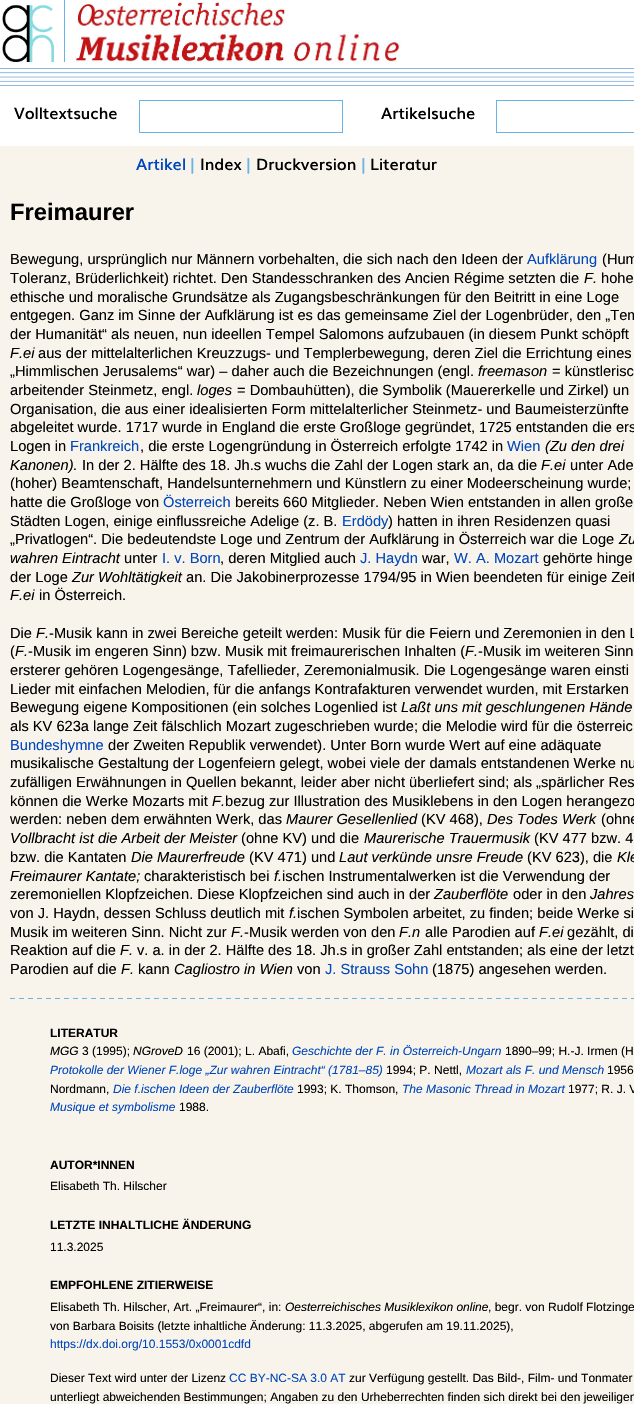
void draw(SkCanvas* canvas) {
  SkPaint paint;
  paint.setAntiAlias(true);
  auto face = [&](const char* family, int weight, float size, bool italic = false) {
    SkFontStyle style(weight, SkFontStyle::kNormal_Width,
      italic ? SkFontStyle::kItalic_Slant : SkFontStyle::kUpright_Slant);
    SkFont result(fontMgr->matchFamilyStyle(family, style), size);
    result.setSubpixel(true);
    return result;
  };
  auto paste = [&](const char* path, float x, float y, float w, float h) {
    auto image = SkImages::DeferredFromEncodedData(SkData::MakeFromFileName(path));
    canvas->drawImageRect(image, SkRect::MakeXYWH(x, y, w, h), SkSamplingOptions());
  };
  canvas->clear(0xffffffff);
  paste("img/1.png", 2, 4, 52, 58);
  paint.setColor(0xff69b3e7);
  canvas->drawRect(SkRect::MakeXYWH(64, 0, 1, 62), paint);
  paste("img/2.png", 75, 0, 326, 62);
  paste("img/3.png", 0, 68, 634, 18);
  paint.setStroke(true);
  paint.setStrokeWidth(1);
  canvas->drawRect(SkRect::MakeXYWH(139.5f, 100.5f, 203, 32), paint);
  canvas->drawRect(SkRect::MakeXYWH(496.5f, 100.5f, 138, 32), paint);
  paint.setStroke(false);
  paint.setColor(0xfff8f4eb);
  canvas->drawRect(SkRect::MakeXYWH(0, 146, 634, 1258), paint);
  paste("img/4.png", 10, 998, 624, 1);
  auto f0 = face("Muli", 600, 16);
  paint.setColor(0xff000000);
  canvas->drawString("Volltextsuche", 14, 119, f0, paint);
  canvas->drawString("Artikelsuche", 381, 119, f0, paint);
  paint.setColor(0xff0047bb);
  canvas->drawString("Artikel", 136, 170, f0, paint);
  paint.setColor(0xff69b3e7);
  canvas->drawString("|", 190, 170, f0, paint);
  paint.setColor(0xff000000);
  canvas->drawString("Index", 200, 170, f0, paint);
  paint.setColor(0xff69b3e7);
  canvas->drawString("|", 246, 170, f0, paint);
  paint.setColor(0xff000000);
  canvas->drawString("Druckversion", 256, 170, f0, paint);
  paint.setColor(0xff69b3e7);
  canvas->drawString("|", 361, 170, f0, paint);
  paint.setColor(0xff000000);
  canvas->drawString("Literatur", 370, 170, f0, paint);
  auto f1 = face("Liberation Sans", 700, 23.75f);
  canvas->drawString("Freimaurer", 10, 220, f1, paint);
  auto f2 = face("Liberation Sans", 400, 14.65f);
  canvas->drawString("Bewegung, ursprünglich nur Männern vorbehalten, die sich nach den Ideen der", 10, 264, f2, paint);
  paint.setColor(0xff0047bb);
  canvas->drawString("Aufklärung", 527, 264, f2, paint);
  paint.setColor(0xff000000);
  canvas->drawString("(Hum", 602, 264, f2, paint);
  canvas->drawString("Toleranz, Brüderlichkeit) richtet. Den Standesschranken des Ancien Régime setzten die", 10, 283, f2, paint);
  auto f3 = face("Liberation Sans", 400, 14.65f, true);
  canvas->drawString("F.", 584, 283, f3, paint);
  {
    const struct { const char* s; float x, y; } items[] = {
      {"hohe", 601, 283},
      {"ethische und moralische Grundsätze als Zugangsbeschränkungen für den Beitritt in eine Loge", 10, 302},
      {"entgegen. Ganz im Sinne der Aufklärung ist es das gemeinsame Ziel der Logenbrüder, den „Tem", 10, 320},
      {"der Humanität“ als neuen, nun ideellen Tempel Salomons aufzubauen (in diesem Punkt schöpft", 10, 339},
    };
    for (auto [s, x, y] : items) {
      canvas->drawString(s, x, y, f2, paint);
    }
  }
  canvas->drawString("F.ei", 10, 358, f3, paint);
  canvas->drawString("aus der mittelalterlichen Kreuzzugs- und Templerbewegung, deren Ziel die Errichtung eines", 38, 358, f2, paint);
  canvas->drawString("„Himmlischen Jerusalems“ war) – daher auch die Bezeichnungen (engl.", 10, 376, f2, paint);
  canvas->drawString("freemason", 478, 376, f3, paint);
  canvas->drawString("= künstlerisc", 552, 376, f2, paint);
  canvas->drawString("arbeitender Steinmetz, engl.", 10, 395, f2, paint);
  canvas->drawString("loges", 197, 395, f3, paint);
  {
    const struct { const char* s; float x, y; } items[] = {
      {"= Dombauhütten), die Symbolik (Mauererkelle und Zirkel) un", 237, 395},
      {"Organisation, die aus einer idealisierten Form mittelalterlicher Steinmetz- und Baumeisterzünfte", 10, 414},
      {"abgeleitet wurde. 1717 wurde in England die erste Großloge gegründet, 1725 entstanden die ers", 10, 432},
      {"Logen in", 10, 451},
    };
    for (auto [s, x, y] : items) {
      canvas->drawString(s, x, y, f2, paint);
    }
  }
  paint.setColor(0xff0047bb);
  canvas->drawString("Frankreich", 70, 451, f2, paint);
  paint.setColor(0xff000000);
  canvas->drawString(", die erste Logengründung in Österreich erfolgte 1742 in", 140, 451, f2, paint);
  paint.setColor(0xff0047bb);
  canvas->drawString("Wien", 507, 451, f2, paint);
  paint.setColor(0xff000000);
  canvas->drawString("(Zu den drei", 545, 451, f3, paint);
  canvas->drawString("Kanonen).", 10, 470, f3, paint);
  canvas->drawString("In der 2. Hälfte des 18. Jh.s wuchs die Zahl der Logen stark an, da die", 82, 470, f2, paint);
  canvas->drawString("F.ei", 541, 470, f3, paint);
  {
    const struct { const char* s; float x, y; } items[] = {
      {"unter Ade", 570, 470},
      {"(hoher) Beamtenschaft, Handelsunternehmern und Künstlern zu einer Modeerscheinung wurde;", 10, 488},
      {"hatte die Großloge von", 10, 507},
    };
    for (auto [s, x, y] : items) {
      canvas->drawString(s, x, y, f2, paint);
    }
  }
  paint.setColor(0xff0047bb);
  canvas->drawString("Österreich", 163, 507, f2, paint);
  paint.setColor(0xff000000);
  canvas->drawString("bereits 660 Mitglieder. Neben Wien entstanden in allen große", 235, 507, f2, paint);
  canvas->drawString("Städten Logen, einige einflussreiche Adelige (z. B.", 10, 526, f2, paint);
  paint.setColor(0xff0047bb);
  canvas->drawString("Erdödy", 342, 526, f2, paint);
  paint.setColor(0xff000000);
  canvas->drawString(") hatten in ihren Residenzen quasi", 388, 526, f2, paint);
  canvas->drawString("„Privatlogen“. Die bedeutendste Loge und Zentrum der Aufklärung in Österreich war die Loge", 10, 544, f2, paint);
  canvas->drawString("Zu", 619, 544, f3, paint);
  canvas->drawString("wahren Eintracht", 10, 563, f3, paint);
  canvas->drawString("unter", 124, 563, f2, paint);
  paint.setColor(0xff0047bb);
  canvas->drawString("I. v. Born", 162, 563, f2, paint);
  paint.setColor(0xff000000);
  canvas->drawString(", deren Mitglied auch", 220, 563, f2, paint);
  paint.setColor(0xff0047bb);
  canvas->drawString("J. Haydn", 360, 563, f2, paint);
  paint.setColor(0xff000000);
  canvas->drawString("war,", 422, 563, f2, paint);
  paint.setColor(0xff0047bb);
  canvas->drawString("W. A. Mozart", 454, 563, f2, paint);
  paint.setColor(0xff000000);
  canvas->drawString("gehörte hinge", 543, 563, f2, paint);
  canvas->drawString("der Loge", 10, 582, f2, paint);
  canvas->drawString("Zur Wohltätigkeit", 72, 582, f3, paint);
  canvas->drawString("an. Die Jakobinerprozesse 1794/95 in Wien beendeten für einige Zeit", 186, 582, f2, paint);
  canvas->drawString("F.ei", 10, 600, f3, paint);
  canvas->drawString("in Österreich.", 39, 600, f2, paint);
  canvas->drawString("Die", 10, 638, f2, paint);
  canvas->drawString("F.", 36, 638, f3, paint);
  canvas->drawString("-Musik kann in zwei Bereiche geteilt werden: Musik für die Feiern und Zeremonien in den L", 49, 638, f2, paint);
  canvas->drawString("(", 10, 656, f2, paint);
  canvas->drawString("F.", 15, 656, f3, paint);
  canvas->drawString("-Musik im engeren Sinn) bzw. Musik mit freimaurerischen Inhalten (", 28, 656, f2, paint);
  canvas->drawString("F.", 465, 656, f3, paint);
  {
    const struct { const char* s; float x, y; } items[] = {
      {"-Musik im weiteren Sinn", 478, 656},
      {"ersterer gehören Logengesänge, Tafellieder, Zeremonialmusik. Die Logengesänge waren einsti", 10, 675},
      {"Lieder mit einfachen Melodien, für die anfangs Kontrafakturen verwendet wurden, mit Erstarken", 10, 694},
      {"Bewegung eigene Kompositionen (ein solches Logenlied ist", 10, 712},
    };
    for (auto [s, x, y] : items) {
      canvas->drawString(s, x, y, f2, paint);
    }
  }
  canvas->drawString("Laßt uns mit geschlungenen Hände", 401, 712, f3, paint);
  canvas->drawString("als KV 623a lange Zeit fälschlich Mozart zugeschrieben wurde; die Melodie wird für die österreic", 10, 731, f2, paint);
  paint.setColor(0xff0047bb);
  canvas->drawString("Bundeshymne", 10, 750, f2, paint);
  paint.setColor(0xff000000);
  {
    const struct { const char* s; float x, y; } items[] = {
      {"der Zweiten Republik verwendet). Unter Born wurde Wert auf eine adäquate", 108, 750},
      {"musikalische Gestaltung der Logenfeiern gelegt, wobei viele der damals entstandenen Werke nu", 10, 768},
      {"zufälligen Erwähnungen in Quellen bekannt, leider aber nicht überliefert sind; als „spärlicher Res", 10, 787},
      {"können die Werke Mozarts mit", 10, 806},
    };
    for (auto [s, x, y] : items) {
      canvas->drawString(s, x, y, f2, paint);
    }
  }
  canvas->drawString("F.", 212, 806, f3, paint);
  canvas->drawString("bezug zur Illustration des Musiklebens in den Logen herangezo", 225, 806, f2, paint);
  canvas->drawString("werden: neben dem erwähnten Werk, das", 10, 824, f2, paint);
  canvas->drawString("Maurer Gesellenlied", 286, 824, f3, paint);
  canvas->drawString("(KV 468),", 421, 824, f2, paint);
  canvas->drawString("Des Todes Werk", 487, 824, f3, paint);
  canvas->drawString("(ohne", 601, 824, f2, paint);
  canvas->drawString("Vollbracht ist die Arbeit der Meister", 10, 843, f3, paint);
  canvas->drawString("(ohne KV) und die", 241, 843, f2, paint);
  canvas->drawString("Maurerische Trauermusik", 364, 843, f3, paint);
  canvas->drawString("(KV 477 bzw. 4", 534, 843, f2, paint);
  canvas->drawString("bzw. die Kantaten", 10, 862, f2, paint);
  canvas->drawString("Die Maurerfreude", 131, 862, f3, paint);
  canvas->drawString("(KV 471) und", 249, 862, f2, paint);
  canvas->drawString("Laut verkünde unsre Freude", 339, 862, f3, paint);
  canvas->drawString("(KV 623), die", 527, 862, f2, paint);
  canvas->drawString("Kle", 617, 862, f3, paint);
  canvas->drawString("Freimaurer Kantate;", 10, 881, f3, paint);
  canvas->drawString("charakteristisch bei", 144, 881, f2, paint);
  canvas->drawString("f.", 274, 881, f3, paint);
  canvas->drawString("ischen Instrumentalwerken ist die Verwendung der", 282, 881, f2, paint);
  canvas->drawString("zeremoniellen Klopfzeichen. Diese Klopfzeichen sind auch in der", 10, 899, f2, paint);
  canvas->drawString("Zauberflöte", 434, 899, f3, paint);
  canvas->drawString("oder in den", 513, 899, f2, paint);
  canvas->drawString("Jahres", 590, 899, f3, paint);
  canvas->drawString("von J. Haydn, dessen Schluss deutlich mit", 10, 918, f2, paint);
  canvas->drawString("f.", 289, 918, f3, paint);
  canvas->drawString("ischen Symbolen arbeitet, zu finden; beide Werke si", 297, 918, f2, paint);
  canvas->drawString("Musik im weiteren Sinn. Nicht zur", 10, 937, f2, paint);
  canvas->drawString("F.", 231, 937, f3, paint);
  canvas->drawString("-Musik werden von den", 244, 937, f2, paint);
  canvas->drawString("F.n", 399, 937, f3, paint);
  canvas->drawString("alle Parodien auf", 425, 937, f2, paint);
  canvas->drawString("F.ei", 539, 937, f3, paint);
  canvas->drawString("gezählt, di", 567, 937, f2, paint);
  canvas->drawString("Reaktion auf die", 10, 955, f2, paint);
  canvas->drawString("F.", 120, 955, f3, paint);
  canvas->drawString("v. a. in der 2. Hälfte des 18. Jh.s in großer Zahl entstanden; als eine der letzt", 137, 955, f2, paint);
  canvas->drawString("Parodien auf die", 10, 974, f2, paint);
  canvas->drawString("F.", 121, 974, f3, paint);
  canvas->drawString("kann", 138, 974, f2, paint);
  canvas->drawString("Cagliostro in Wien", 174, 974, f3, paint);
  canvas->drawString("von", 297, 974, f2, paint);
  paint.setColor(0xff0047bb);
  canvas->drawString("J. Strauss Sohn", 325, 974, f2, paint);
  paint.setColor(0xff000000);
  canvas->drawString("(1875) angesehen werden.", 432, 974, f2, paint);
  auto f4 = face("Liberation Sans", 700, 12);
  canvas->drawString("LITERATUR", 50, 1037, f4, paint);
  auto f5 = face("Liberation Sans", 400, 12, true);
  canvas->drawString("MGG", 50, 1055, f5, paint);
  auto f6 = face("Liberation Sans", 400, 12);
  canvas->drawString("3 (1995);", 82, 1055, f6, paint);
  canvas->drawString("NGroveD", 133, 1055, f5, paint);
  canvas->drawString("16 (2001); L. Abafi,", 187, 1055, f6, paint);
  paint.setColor(0xff0047bb);
  canvas->drawString("Geschichte der F. in Österreich-Ungarn", 292, 1055, f5, paint);
  paint.setColor(0xff000000);
  canvas->drawString("1890–99; H.-J. Irmen (H", 505, 1055, f6, paint);
  paint.setColor(0xff0047bb);
  canvas->drawString("Protokolle der Wiener F.loge „Zur wahren Eintracht“ (1781–85)", 50, 1074, f5, paint);
  paint.setColor(0xff000000);
  canvas->drawString("1994; P. Nettl,", 386, 1074, f6, paint);
  paint.setColor(0xff0047bb);
  canvas->drawString("Mozart als F. und Mensch", 466, 1074, f5, paint);
  paint.setColor(0xff000000);
  canvas->drawString("1956", 607, 1074, f6, paint);
  canvas->drawString("Nordmann,", 50, 1093, f6, paint);
  paint.setColor(0xff0047bb);
  canvas->drawString("Die f.ischen Ideen der Zauberflöte", 113, 1093, f5, paint);
  paint.setColor(0xff000000);
  canvas->drawString("1993; K. Thomson,", 297, 1093, f6, paint);
  paint.setColor(0xff0047bb);
  canvas->drawString("The Masonic Thread in Mozart", 402, 1093, f5, paint);
  paint.setColor(0xff000000);
  canvas->drawString("1977; R. J. V", 568, 1093, f6, paint);
  paint.setColor(0xff0047bb);
  canvas->drawString("Musique et symbolisme", 50, 1111, f5, paint);
  paint.setColor(0xff000000);
  canvas->drawString("1988.", 179, 1111, f6, paint);
  canvas->drawString("AUTOR*INNEN", 50, 1169, f4, paint);
  canvas->drawString("Elisabeth Th. Hilscher", 50, 1190, f6, paint);
  canvas->drawString("LETZTE INHALTLICHE ÄNDERUNG", 50, 1229, f4, paint);
  canvas->drawString("11.3.2025", 50, 1251, f6, paint);
  canvas->drawString("EMPFOHLENE ZITIERWEISE", 50, 1289, f4, paint);
  canvas->drawString("Elisabeth Th. Hilscher, Art. „Freimaurer“, in:", 50, 1311, f6, paint);
  canvas->drawString("Oesterreichisches Musiklexikon online", 285, 1311, f5, paint);
  canvas->drawString(", begr. von Rudolf Flotzinge", 488, 1311, f6, paint);
  canvas->drawString("von Barbara Boisits (letzte inhaltliche Änderung: 11.3.2025, abgerufen am 19.11.2025),", 50, 1330, f6, paint);
  paint.setColor(0xff0047bb);
  canvas->drawString("https://dx.doi.org/10.1553/0x0001cdfd", 50, 1348, f6, paint);
  paint.setColor(0xff000000);
  canvas->drawString("Dieser Text wird unter der Lizenz", 50, 1382, f6, paint);
  paint.setColor(0xff0047bb);
  canvas->drawString("CC BY-NC-SA 3.0 AT", 229, 1382, f6, paint);
  paint.setColor(0xff000000);
  canvas->drawString("zur Verfügung gestellt. Das Bild-, Film- und Tonmater", 349, 1382, f6, paint);
  canvas->drawString("unterliegt abweichenden Bestimmungen; Angaben zu den Urheberrechten finden sich direkt bei den jeweiligen", 50, 1401, f6, paint);
}
